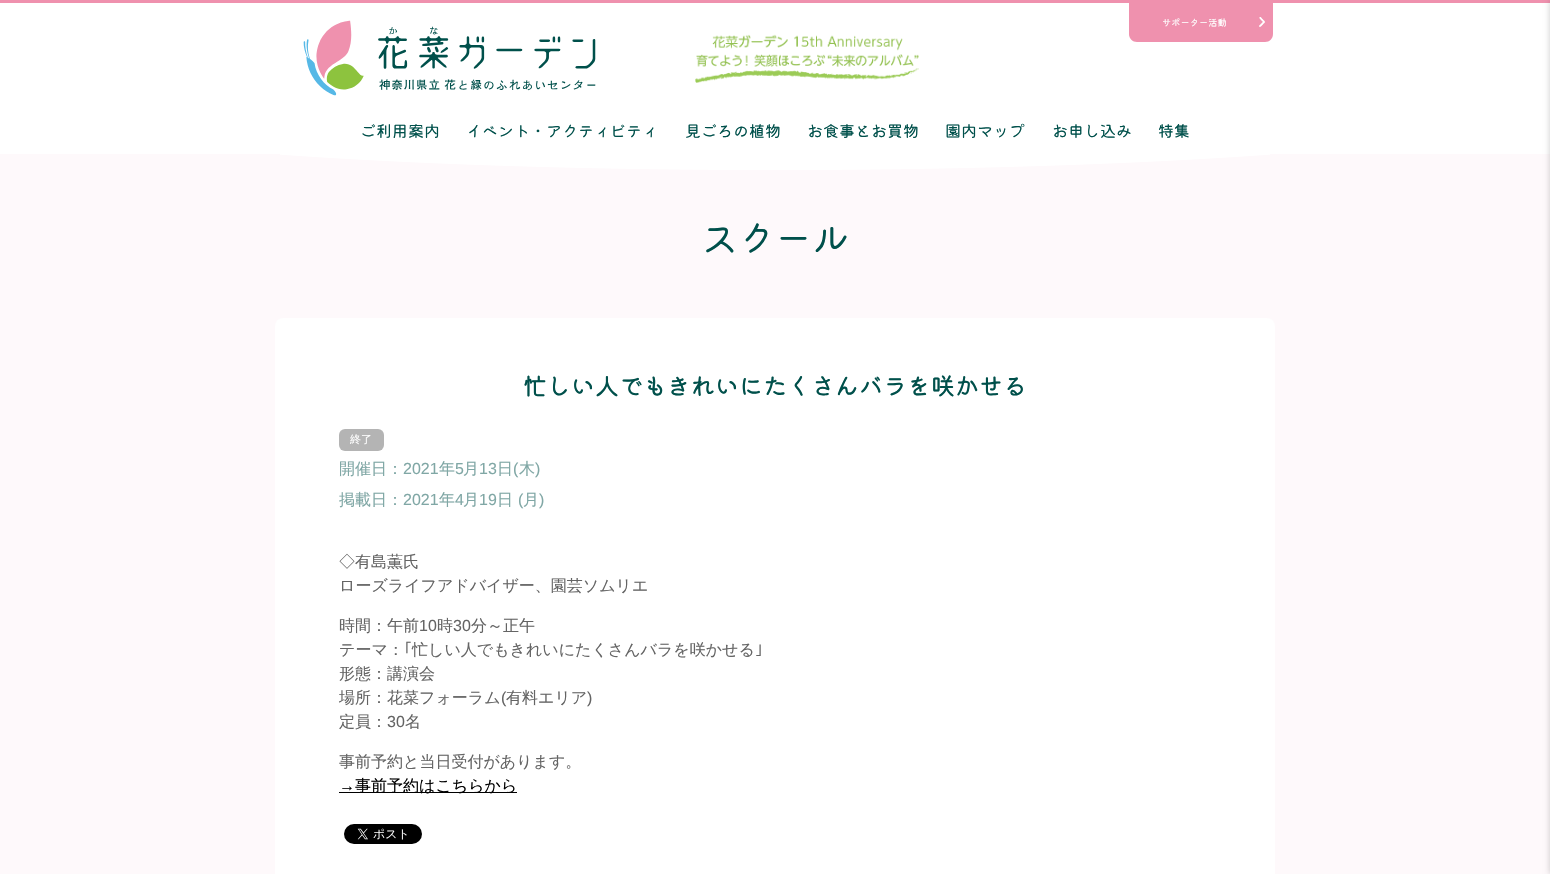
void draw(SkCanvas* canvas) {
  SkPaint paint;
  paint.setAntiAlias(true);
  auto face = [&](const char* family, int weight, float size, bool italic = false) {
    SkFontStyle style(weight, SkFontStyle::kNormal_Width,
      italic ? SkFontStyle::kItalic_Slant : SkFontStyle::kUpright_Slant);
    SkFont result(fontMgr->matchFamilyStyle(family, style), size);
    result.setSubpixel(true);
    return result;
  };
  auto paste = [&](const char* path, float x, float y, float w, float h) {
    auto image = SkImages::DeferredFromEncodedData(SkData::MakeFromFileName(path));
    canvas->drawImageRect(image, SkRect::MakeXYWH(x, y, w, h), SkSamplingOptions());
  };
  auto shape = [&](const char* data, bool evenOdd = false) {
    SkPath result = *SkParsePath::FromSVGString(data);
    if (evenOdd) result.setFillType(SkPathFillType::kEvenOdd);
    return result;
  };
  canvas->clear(0xfffef9fb);
  paint.setColor(0xffffffff);
  canvas->drawRect(SkRect::MakeXYWH(0, 3, 1550, 151), paint);
  paint.setColor(0xffef91ae);
  canvas->drawRect(SkRect::MakeXYWH(0, 0, 1550, 3), paint);
  paste("img/1.png", 303, 20, 293, 76);
  paste("img/2.png", 695, 34, 224, 49);
  canvas->drawPath(shape("M1129 3H1273V34C1273 38.5 1269.5 42 1265 42H1137C1132.5 42 1129 38.5 1129 34Z"), paint);
  paste("img/3.png", 1259, 17, 6, 10);
  paint.setColor(0x33000000);
  paint.setMaskFilter(SkMaskFilter::MakeBlur(kNormal_SkBlurStyle, 3));
  canvas->drawRect(SkRect::MakeXYWH(1550, 0, 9, 874), paint);
  paint.setMaskFilter(nullptr);
  paste("img/4.png", 280, 154, 990, 16);
  paint.setColor(0xffffffff);
  canvas->drawRoundRect(SkRect::MakeXYWH(275, 318, 1000, 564), 8, 8, paint);
  paint.setColor(0xffb4b4b4);
  canvas->drawRoundRect(SkRect::MakeXYWH(339, 429, 45, 22), 6, 6, paint);
  paint.setColor(0xff000000);
  canvas->drawRect(SkRect::MakeXYWH(339, 792, 178, 1), paint);
  paste("img/5.png", 344, 824, 78, 20);
  auto f0 = face("Kiwi Maru", 400, 9.25f);
  paint.setColor(0xffffffff);
  canvas->drawString("サポーター活動", 1162, 26, f0, paint);
  auto f1 = face("Kiwi Maru", 400, 16);
  paint.setColor(0xff00504b);
  {
    const struct { const char* s; float x, y; } items[] = {
      {"ご利用案内", 360, 137},
      {"イベント・アクティビティ", 466, 137},
      {"見ごろの植物", 685, 137},
      {"お食事とお買物", 807, 137},
      {"園内マップ", 945, 137},
      {"お申し込み", 1052, 137},
      {"特集", 1158, 137},
    };
    for (auto [s, x, y] : items) {
      canvas->drawString(s, x, y, f1, paint);
    }
  }
  auto f2 = face("Kiwi Maru", 400, 37);
  canvas->drawString("スクール", 701, 252, f2, paint);
  auto f3 = face("Kiwi Maru", 500, 24);
  canvas->drawString("忙しい人でもきれいにたくさんバラを咲かせる", 523, 395, f3, paint);
  auto f4 = face("WenQuanYi Zen Hei", 500, 11);
  paint.setColor(0xffffffff);
  canvas->drawString("終了", 350, 443, f4, paint);
  auto f5 = face("WenQuanYi Zen Hei", 500, 16);
  paint.setColor(0xff80a7a5);
  canvas->drawString("開催日：", 339, 474, f5, paint);
  auto f6 = face("Liberation Sans", 400, 16);
  canvas->drawString("2021", 403, 474, f6, paint);
  canvas->drawString("年", 439, 474, f5, paint);
  canvas->drawString("5", 455, 474, f6, paint);
  canvas->drawString("月", 463, 474, f5, paint);
  canvas->drawString("13", 479, 474, f6, paint);
  canvas->drawString("日", 497, 474, f5, paint);
  canvas->drawString("(", 513, 474, f6, paint);
  canvas->drawString("木", 519, 474, f5, paint);
  canvas->drawString(")", 535, 474, f6, paint);
  canvas->drawString("掲載日：", 339, 505, f5, paint);
  canvas->drawString("2021", 403, 505, f6, paint);
  canvas->drawString("年", 439, 505, f5, paint);
  canvas->drawString("4", 455, 505, f6, paint);
  canvas->drawString("月", 463, 505, f5, paint);
  canvas->drawString("19", 479, 505, f6, paint);
  canvas->drawString("日", 497, 505, f5, paint);
  canvas->drawString("(", 518, 505, f6, paint);
  canvas->drawString("月", 523, 505, f5, paint);
  canvas->drawString(")", 539, 505, f6, paint);
  paint.setColor(0xff646464);
  {
    const struct { const char* s; float x, y; } items[] = {
      {"◇有島薫氏", 339, 567},
      {"ローズライフアドバイザー、園芸ソムリエ", 339, 591},
      {"時間：午前", 339, 631},
    };
    for (auto [s, x, y] : items) {
      canvas->drawString(s, x, y, f5, paint);
    }
  }
  canvas->drawString("10", 419, 631, f6, paint);
  canvas->drawString("時", 437, 631, f5, paint);
  canvas->drawString("30", 453, 631, f6, paint);
  canvas->drawString("分～正午", 471, 631, f5, paint);
  canvas->drawString("テーマ：", 339, 655, f5, paint);
  auto f7 = face("IPAPGothic", 400, 16);
  canvas->drawString("｢", 404, 655, f7, paint);
  canvas->drawString("忙しい人でもきれいにたくさんバラを咲かせる", 412, 655, f5, paint);
  canvas->drawString("｣", 755, 655, f7, paint);
  canvas->drawString("形態：講演会", 339, 679, f5, paint);
  canvas->drawString("場所：花菜フォーラム", 339, 703, f5, paint);
  canvas->drawString("(", 501, 703, f6, paint);
  canvas->drawString("有料エリア", 506, 703, f5, paint);
  canvas->drawString(")", 587, 703, f6, paint);
  canvas->drawString("定員：", 339, 727, f5, paint);
  canvas->drawString("30", 387, 727, f6, paint);
  canvas->drawString("名", 405, 727, f5, paint);
  canvas->drawString("事前予約と当日受付があります。", 339, 767, f5, paint);
  paint.setColor(0xff000000);
  canvas->drawString("→", 339, 791, f6, paint);
  canvas->drawString("事前予約はこちらから", 355, 791, f5, paint);
}
